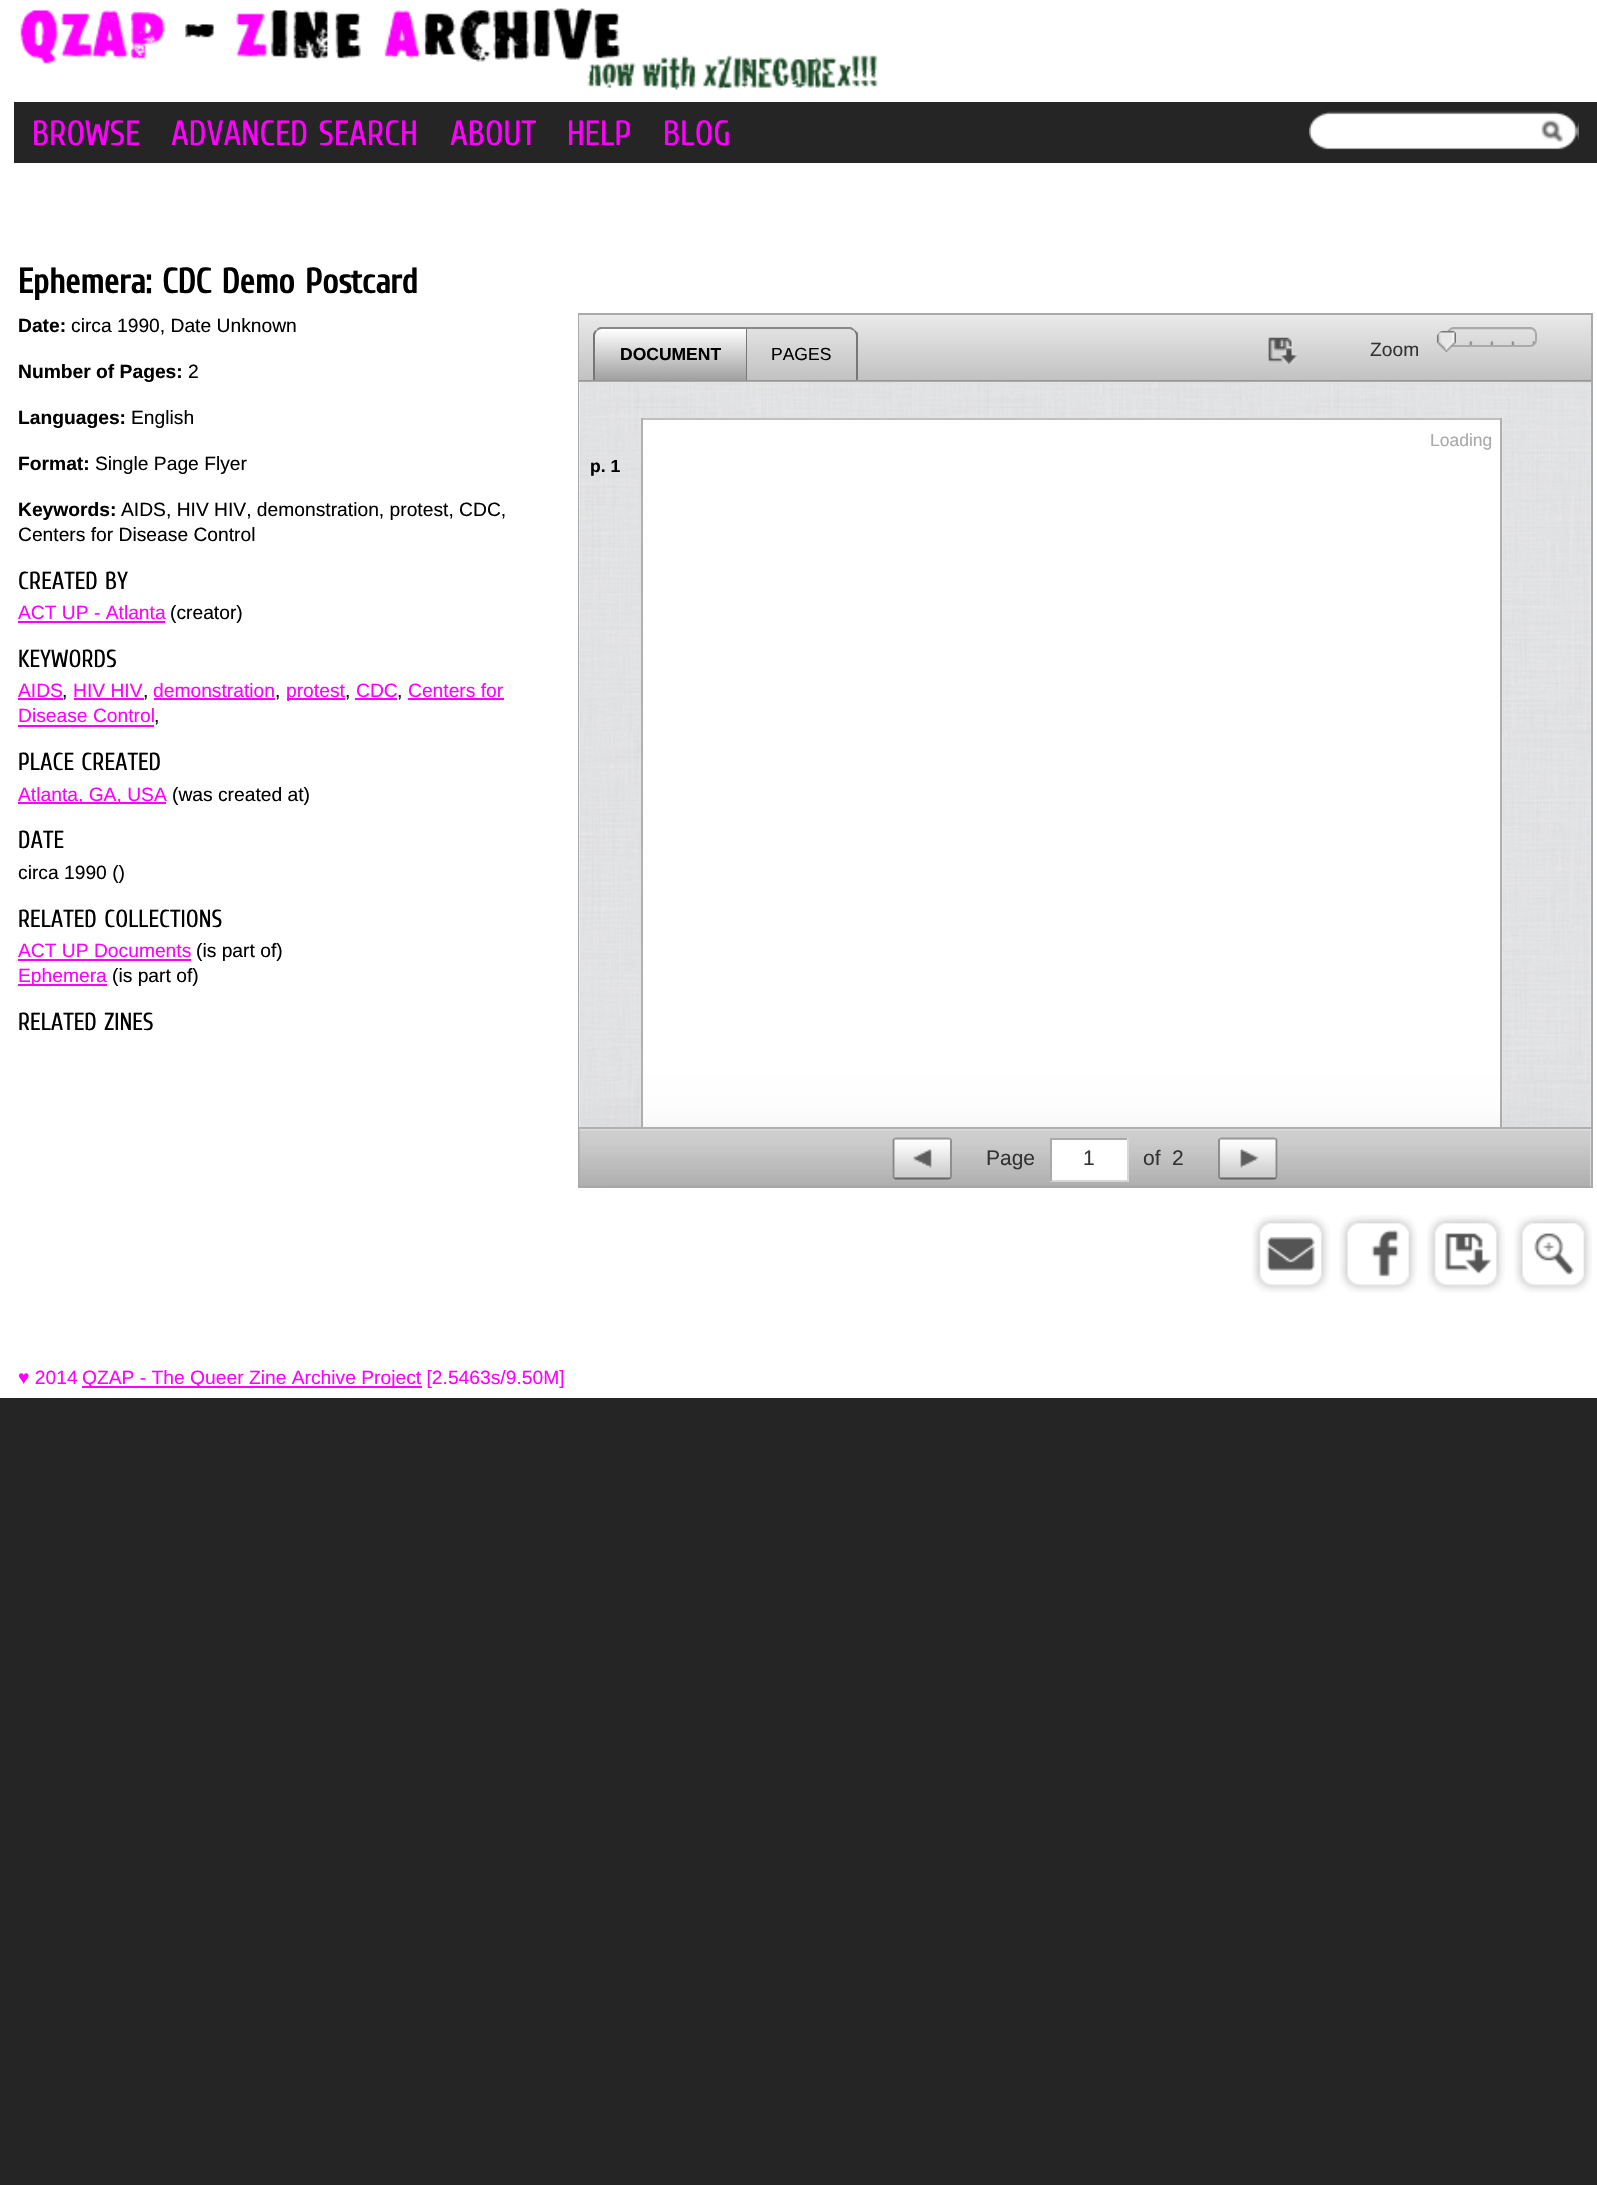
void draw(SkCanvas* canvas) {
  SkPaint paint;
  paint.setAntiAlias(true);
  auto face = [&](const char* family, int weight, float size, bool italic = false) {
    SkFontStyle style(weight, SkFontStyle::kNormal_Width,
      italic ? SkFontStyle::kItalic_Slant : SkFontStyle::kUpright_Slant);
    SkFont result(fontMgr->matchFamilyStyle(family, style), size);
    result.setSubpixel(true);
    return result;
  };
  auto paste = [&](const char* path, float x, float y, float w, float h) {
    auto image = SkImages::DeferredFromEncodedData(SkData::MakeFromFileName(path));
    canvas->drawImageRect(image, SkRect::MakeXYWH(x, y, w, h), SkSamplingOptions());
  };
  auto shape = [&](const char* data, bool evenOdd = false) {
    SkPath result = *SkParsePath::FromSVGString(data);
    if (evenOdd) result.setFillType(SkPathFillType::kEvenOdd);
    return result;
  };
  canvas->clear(0xff252525);
  paint.setColor(0xffffffff);
  canvas->drawRect(SkRect::MakeXYWH(0, 0, 1597, 1398), paint);
  paste("img/1.png", 20, 8, 858, 82);
  paint.setColor(0xff252525);
  canvas->drawRect(SkRect::MakeXYWH(14, 102, 1583, 61), paint);
  paste("img/2.png", 1309, 111, 270, 39);
  paste("img/3.png", 1541, 120, 22, 22);
  {
    const struct { float x, y, w, h; SkColor color; } items[] = {
      {18, 621, 147, 2, 0xffff00ff},
      {18, 698, 45, 2, 0xffff00ff},
      {74, 698, 70, 2, 0xffff00ff},
      {154, 698, 121, 2, 0xffff00ff},
      {287, 698, 58, 2, 0xffff00ff},
      {355, 698, 42, 2, 0xffff00ff},
      {408, 698, 96, 2, 0xffff00ff},
      {18, 725, 136, 2, 0xffff00ff},
      {18, 802, 148, 2, 0xffff00ff},
      {18, 959, 173, 2, 0xffff00ff},
      {18, 984, 89, 2, 0xffff00ff},
    };
    for (auto [x, y, w, h, color] : items) {
      paint.setColor(color);
      canvas->drawRect(SkRect::MakeXYWH(x, y, w, h), paint);
    }
  }
  paint.setStroke(true);
  paint.setStrokeWidth(2);
  paint.setColor(0xffaaaaaa);
  canvas->drawRect(SkRect::MakeXYWH(579, 314, 1013, 873), paint);
  paint.setStroke(false);
  paint.setColor(0xff979797);
  canvas->drawRect(SkRect::MakeXYWH(579, 380, 1012, 2), paint);
  {
    const SkColor colors[] = {0xffeaeaea, 0xffc2c2c2};
    const float stops[] = {0, 1};
    const SkPoint ends[] = {{579, 315}, {579, 380}};
    paint.setShader(SkGradientShader::MakeLinear(ends, colors, stops, 2, SkTileMode::kClamp));
    paint.setAlpha(255);
  }
  canvas->drawRect(SkRect::MakeXYWH(579, 315, 1012, 65), paint);
  canvas->save();
  canvas->clipPath(shape("M602 327H747V380H593V336C593 331 597 327 602 327Z"), true);
  {
    const SkColor colors[] = {0xffffffff, 0xffa0a0a0};
    const float stops[] = {0, 1};
    const SkPoint ends[] = {{595, 278}, {595, 329}};
    paint.setShader(SkGradientShader::MakeLinear(ends, colors, stops, 2, SkTileMode::kClamp));
    paint.setAlpha(255);
  }
  canvas->drawRect(SkRect::MakeXYWH(593, 327, 154, 2), paint);
  {
    const SkColor colors[] = {0xffffffff, 0xffa0a0a0};
    const float stops[] = {0, 1};
    const SkPoint ends[] = {{595, 329}, {595, 380}};
    paint.setShader(SkGradientShader::MakeLinear(ends, colors, stops, 2, SkTileMode::kClamp));
    paint.setAlpha(255);
  }
  canvas->drawRect(SkRect::MakeXYWH(593, 329, 153, 51), paint);
  canvas->restore();
  paint.setShader(nullptr);
  paint.setColor(0xff888888);
  canvas->drawPath(shape("M602 329C600 329 598 330 597 331L596 330L600 327H747L746 329Z"), paint);
  paint.setColor(0xff777777);
  canvas->drawPath(shape("M746 380V329L747 328V380Z"), paint);
  canvas->drawPath(shape("M593 380V334C594 332 594 331 596 330L597 331C596 332 595 334 595 336V380Z"), paint);
  canvas->save();
  canvas->clipPath(shape("M747 327H849C854 327 858 331 858 336V380H747Z"), true);
  {
    const SkColor colors[] = {0xffe3e3e3, 0xffc2c2c2};
    const float stops[] = {0, 1};
    const SkPoint ends[] = {{747, 278}, {747, 329}};
    paint.setShader(SkGradientShader::MakeLinear(ends, colors, stops, 2, SkTileMode::kClamp));
    paint.setAlpha(255);
  }
  canvas->drawRect(SkRect::MakeXYWH(851, 327, 7, 2), paint);
  canvas->restore();
  paint.setShader(nullptr);
  paint.setColor(0xff888888);
  canvas->drawPath(shape("M747 327H851L855 330L854 331L850 329H747Z"), paint);
  paint.setColor(0xff777777);
  canvas->drawPath(shape("M856 380V336C856 334 855 332 854 331L855 330L858 333V380Z"), paint);
  paste("img/4.png", 1268, 337, 29, 27);
  paste("img/5.png", 1448, 327, 88, 19);
  paint.setStroke(true);
  paint.setColor(0xffaaaaaa);
  canvas->drawRoundRect(SkRect::MakeXYWH(1448, 328, 88, 18), 6, 6, paint);
  paste("img/6.png", 1436, 330, 20, 22);
  paint.setStroke(false);
  paint.setColor(0xfff5f6f7);
  canvas->drawRect(SkRect::MakeXYWH(579, 382, 1012, 745), paint);
  paste("img/7.png", 579, 381, 1012, 746);
  {
    const struct { float x, y, w, h; SkColor color; } items[] = {
      {643, 420, 857, 707, 0xffffffff},
      {641, 418, 861, 2, 0xffc0c0c0},
      {1500, 418, 2, 711, 0xffb0b0b0},
      {641, 418, 2, 711, 0xffb0b0b0},
    };
    for (auto [x, y, w, h, color] : items) {
      paint.setColor(color);
      canvas->drawRect(SkRect::MakeXYWH(x, y, w, h), paint);
    }
  }
  paste("img/11.png", 1252, 1215, 78, 78);
  paste("img/12.png", 1339, 1215, 78, 78);
  paste("img/13.png", 1427, 1215, 78, 78);
  paste("img/14.png", 1514, 1215, 78, 78);
  canvas->save();
  canvas->clipRect(SkRect::MakeXYWH(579, 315, 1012, 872));
  paint.setColor(0x0d000000);
  paint.setMaskFilter(SkMaskFilter::MakeBlur(kNormal_SkBlurStyle, 22));
  canvas->drawRect(SkRect::MakeXYWH(579, 1127, 1012, 60), paint);
  paint.setMaskFilter(nullptr);
  canvas->restore();
  paste("img/8.png", 579, 1129, 1012, 57);
  paint.setColor(0xffb0b0b0);
  canvas->drawRect(SkRect::MakeXYWH(579, 1127, 1012, 2), paint);
  paste("img/9.png", 894, 1139, 58, 39);
  paint.setStroke(true);
  paint.setStrokeWidth(1.8f);
  paint.setColor(0xff999999);
  canvas->drawPath(shape("M894 1139L896 1138.5H948.5L950.5 1139"), paint);
  paint.setColor(0xff888888);
  canvas->drawPath(shape("M950.5 1139C951 1139.5 951 1140.5 951 1141V1176C951 1176.5 951 1177.5 950.5 1178"), paint);
  paint.setColor(0xff666666);
  canvas->drawPath(shape("M950.5 1178L948.5 1178.5H896L894 1178"), paint);
  paint.setColor(0xff888888);
  canvas->drawPath(shape("M894 1178C893.5 1177.5 893.5 1176.5 893.5 1176V1141C893.5 1140.5 893.5 1139.5 894 1139"), paint);
  paint.setStroke(false);
  {
    const struct { float x, y, w, h; SkColor color; } items[] = {
      {1052, 1140, 75, 40, 0xffffffff},
      {1050, 1138, 79, 2, 0xffaaaaaa},
      {1127, 1138, 2, 43, 0xffd7d7d7},
      {1050, 1180, 79, 2, 0xffd7d7d7},
      {1050, 1138, 2, 43, 0xffaaaaaa},
    };
    for (auto [x, y, w, h, color] : items) {
      paint.setColor(color);
      canvas->drawRect(SkRect::MakeXYWH(x, y, w, h), paint);
    }
  }
  paste("img/10.png", 1218, 1139, 60, 39);
  paint.setStroke(true);
  paint.setColor(0xff999999);
  canvas->drawPath(shape("M1219.5 1139L1221.5 1138.5H1274L1276 1139"), paint);
  paint.setColor(0xff888888);
  canvas->drawPath(shape("M1276 1139C1276.5 1139.5 1276.5 1140.5 1276.5 1141V1176C1276.5 1176.5 1276.5 1177.5 1276 1178"), paint);
  paint.setColor(0xff666666);
  canvas->drawPath(shape("M1276 1178L1274 1178.5H1221.5L1219.5 1178"), paint);
  paint.setColor(0xff888888);
  canvas->drawPath(shape("M1219.5 1178C1219 1177.5 1219 1176.5 1219 1176V1141C1219 1140.5 1219 1139.5 1219.5 1139"), paint);
  paint.setStroke(false);
  paint.setColor(0xffff00ff);
  canvas->drawRect(SkRect::MakeXYWH(82, 1386, 340, 2), paint);
  auto f0 = face("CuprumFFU", 400, 35);
  {
    const struct { const char* s; float x, y; } items[] = {
      {"BROWSE", 32, 145},
      {"ADVANCED SEARCH", 171, 145},
      {"ABOUT", 450, 145},
      {"HELP", 567, 145},
      {"BLOG", 663, 145},
    };
    for (auto [s, x, y] : items) {
      canvas->drawString(s, x, y, f0, paint);
    }
  }
  auto f1 = face("CuprumFFU", 700, 35);
  paint.setColor(0xff000000);
  canvas->drawString("Ephemera: CDC Demo Postcard", 18, 293, f1, paint);
  auto f2 = face("Liberation Sans", 700, 19.25f);
  canvas->drawString("Date:", 18, 332, f2, paint);
  auto f3 = face("Liberation Sans", 400, 19.25f);
  canvas->drawString("circa 1990, Date Unknown", 71, 332, f3, paint);
  canvas->drawString("Number of Pages:", 18, 378, f2, paint);
  canvas->drawString("2", 188, 378, f3, paint);
  canvas->drawString("Languages:", 18, 424, f2, paint);
  canvas->drawString("English", 131, 424, f3, paint);
  canvas->drawString("Format:", 18, 470, f2, paint);
  canvas->drawString("Single Page Flyer", 95, 470, f3, paint);
  canvas->drawString("Keywords:", 18, 516, f2, paint);
  canvas->drawString("AIDS, HIV HIV, demonstration, protest, CDC,", 121, 516, f3, paint);
  canvas->drawString("Centers for Disease Control", 18, 541, f3, paint);
  auto f4 = face("CuprumFFU", 400, 24.5f);
  canvas->drawString("CREATED BY", 18, 589, f4, paint);
  paint.setColor(0xffff00ff);
  canvas->drawString("ACT UP - Atlanta", 18, 619, f3, paint);
  paint.setColor(0xff000000);
  canvas->drawString("(creator)", 170, 619, f3, paint);
  canvas->drawString("KEYWORDS", 18, 667, f4, paint);
  paint.setColor(0xffff00ff);
  canvas->drawString("AIDS", 18, 697, f3, paint);
  paint.setColor(0xff000000);
  canvas->drawString(",", 62, 697, f3, paint);
  paint.setColor(0xffff00ff);
  canvas->drawString("HIV HIV", 73, 697, f3, paint);
  paint.setColor(0xff000000);
  canvas->drawString(",", 143, 697, f3, paint);
  paint.setColor(0xffff00ff);
  canvas->drawString("demonstration", 153, 697, f3, paint);
  paint.setColor(0xff000000);
  canvas->drawString(",", 275, 697, f3, paint);
  paint.setColor(0xffff00ff);
  canvas->drawString("protest", 286, 697, f3, paint);
  paint.setColor(0xff000000);
  canvas->drawString(",", 345, 697, f3, paint);
  paint.setColor(0xffff00ff);
  canvas->drawString("CDC", 356, 697, f3, paint);
  paint.setColor(0xff000000);
  canvas->drawString(",", 397, 697, f3, paint);
  paint.setColor(0xffff00ff);
  canvas->drawString("Centers for", 408, 697, f3, paint);
  canvas->drawString("Disease Control", 18, 722, f3, paint);
  paint.setColor(0xff000000);
  canvas->drawString(",", 154, 722, f3, paint);
  canvas->drawString("PLACE CREATED", 18, 770, f4, paint);
  paint.setColor(0xffff00ff);
  canvas->drawString("Atlanta, GA, USA", 18, 801, f3, paint);
  paint.setColor(0xff000000);
  canvas->drawString("(was created at)", 172, 801, f3, paint);
  canvas->drawString("DATE", 18, 848, f4, paint);
  canvas->drawString("circa 1990 ()", 18, 879, f3, paint);
  canvas->drawString("RELATED COLLECTIONS", 18, 927, f4, paint);
  paint.setColor(0xffff00ff);
  canvas->drawString("ACT UP Documents", 18, 957, f3, paint);
  paint.setColor(0xff000000);
  canvas->drawString("(is part of)", 196, 957, f3, paint);
  paint.setColor(0xffff00ff);
  canvas->drawString("Ephemera", 18, 982, f3, paint);
  paint.setColor(0xff000000);
  canvas->drawString("(is part of)", 112, 982, f3, paint);
  canvas->drawString("RELATED ZINES", 18, 1030, f4, paint);
  auto f5 = face("Liberation Sans", 700, 17.5f);
  canvas->drawString("DOCUMENT", 620, 360, f5, paint);
  auto f6 = face("Liberation Sans", 400, 17.5f);
  canvas->drawString("PAGES", 771, 360, f6, paint);
  paint.setColor(0xff333333);
  canvas->drawString("Zoom", 1370, 356, f3, paint);
  paint.setColor(0xffaaaaaa);
  canvas->drawString("Loading", 1430, 446, f6, paint);
  paint.setColor(0xff000000);
  canvas->drawString("p. 1", 590, 472, f5, paint);
  auto f7 = face("Liberation Sans", 400, 21);
  paint.setColor(0xff333333);
  {
    const struct { const char* s; float x, y; } items[] = {
      {"Page", 986, 1165},
      {"1", 1083, 1165},
      {"of", 1143, 1165},
      {"2", 1172, 1165},
    };
    for (auto [s, x, y] : items) {
      canvas->drawString(s, x, y, f7, paint);
    }
  }
  paint.setColor(0xffff00ff);
  canvas->drawString("♥ 2014", 18, 1384, f3, paint);
  canvas->drawString("QZAP - The Queer Zine Archive Project [2.5463s/9.50M]", 82, 1384, f3, paint);
}
